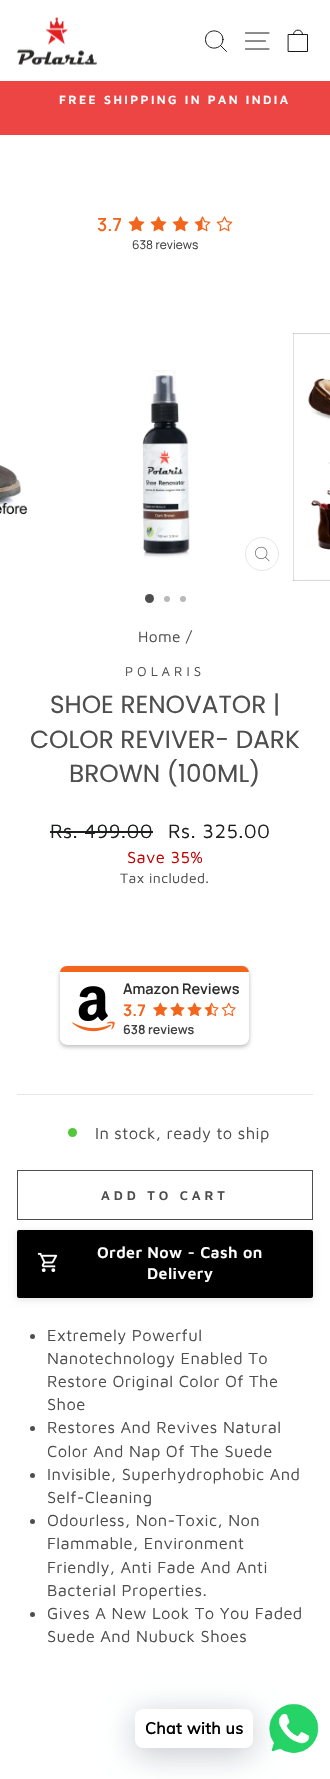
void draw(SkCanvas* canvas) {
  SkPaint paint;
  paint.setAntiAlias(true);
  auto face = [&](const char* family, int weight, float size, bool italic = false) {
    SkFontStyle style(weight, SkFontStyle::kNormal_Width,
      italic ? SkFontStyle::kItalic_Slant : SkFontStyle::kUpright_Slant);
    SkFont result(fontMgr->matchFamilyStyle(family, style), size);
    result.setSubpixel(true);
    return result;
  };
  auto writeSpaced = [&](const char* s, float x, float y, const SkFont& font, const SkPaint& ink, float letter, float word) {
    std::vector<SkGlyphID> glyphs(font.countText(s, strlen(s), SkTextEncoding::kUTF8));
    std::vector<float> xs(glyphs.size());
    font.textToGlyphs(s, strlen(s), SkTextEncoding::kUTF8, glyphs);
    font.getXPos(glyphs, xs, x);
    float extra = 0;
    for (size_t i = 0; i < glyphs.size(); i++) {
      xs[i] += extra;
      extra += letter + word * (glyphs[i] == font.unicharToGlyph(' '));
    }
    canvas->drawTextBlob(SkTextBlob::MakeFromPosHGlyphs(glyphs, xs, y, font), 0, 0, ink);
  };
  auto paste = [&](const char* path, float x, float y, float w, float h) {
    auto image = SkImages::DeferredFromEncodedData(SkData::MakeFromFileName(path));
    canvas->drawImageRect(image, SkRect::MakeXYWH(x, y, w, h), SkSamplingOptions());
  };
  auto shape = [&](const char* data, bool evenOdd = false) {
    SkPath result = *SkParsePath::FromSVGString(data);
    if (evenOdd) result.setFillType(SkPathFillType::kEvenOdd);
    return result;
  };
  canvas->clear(0xffffffff);
  paste("img/1.png", 17, 17, 80, 48);
  paint.setStroke(true);
  paint.setStrokeWidth(0.9f);
  paint.setStrokeCap(SkPaint::kRound_Cap);
  paint.setStrokeJoin(SkPaint::kRound_Join);
  paint.setColor(0xff000000);
  canvas->drawPath(shape("M223 39.5C223 51 205.5 51 205.5 39.5C205.5 28 223 28 223 39.5ZM226.5 51.5L220.5 45.5"), paint);
  canvas->drawPath(shape("M245.5 33H269M245.5 41H265.5M245.5 49H269M288.5 34.5H307.5V51.5H288.5ZM293.5 34.5C293.5 28.5 302.5 28.5 302.5 34.5"), paint);
  paint.setStroke(false);
  paint.setColor(0xffed4444);
  canvas->drawRect(SkRect::MakeXYWH(0, 81, 330, 54), paint);
  paste("img/2.png", 128, 216, 17, 16);
  paste("img/2.png", 150, 216, 17, 16);
  paste("img/2.png", 172, 216, 17, 16);
  paste("img/3.png", 194, 216, 17, 16);
  paste("img/4.png", 216, 216, 17, 16);
  paste("img/5.png", 0, 465, 28, 50);
  paste("img/6.png", 142, 370, 48, 188);
  paint.setStroke(true);
  paint.setStrokeWidth(1);
  paint.setStrokeCap(SkPaint::kButt_Cap);
  paint.setStrokeJoin(SkPaint::kMiter_Join);
  paint.setColor(0xffe8e8e1);
  canvas->drawCircle(262, 554, 16.5f, paint);
  paste("img/7.png", 255, 546, 15, 16);
  paste("img/8.png", 293, 333, 37, 248);
  paint.setStroke(false);
  paint.setColor(0xff4e4e4e);
  canvas->drawCircle(149.5f, 598.5f, 4.5f, paint);
  paint.setColor(0xffb8b8b8);
  canvas->drawCircle(167, 599, 3, paint);
  canvas->drawCircle(183, 599, 3, paint);
  paint.setColor(0xff1c1d1d);
  canvas->drawRect(SkRect::MakeXYWH(50, 831, 103, 2), paint);
  paint.setColor(0x42000000);
  paint.setMaskFilter(SkMaskFilter::MakeBlur(kNormal_SkBlurStyle, 2));
  canvas->drawRoundRect(SkRect::MakeXYWH(60, 968, 189, 79), 7, 7, paint);
  paint.setMaskFilter(nullptr);
  canvas->save();
  canvas->clipPath(shape("M67 966H242C246 966 249 969 249 973V1038C249 1042 246 1045 242 1045H67C63 1045 60 1042 60 1038V973C60 969 63 966 67 966Z"), true);
  paint.setColor(0xfff1651d);
  canvas->drawRect(SkRect::MakeXYWH(60, 966, 189, 6), paint);
  paint.setColor(0xffffffff);
  canvas->drawPath(shape("M60 972H249V1038C249 1042 246 1045 242 1045H67C63 1045 60 1042 60 1038Z"), paint);
  canvas->restore();
  paste("img/9.png", 72, 986, 43, 46);
  paste("img/10.png", 153, 1002, 15, 15);
  paste("img/11.png", 170, 1002, 15, 15);
  paste("img/12.png", 187, 1002, 15, 15);
  paste("img/13.png", 204, 1002, 15, 15);
  paste("img/14.png", 221, 1002, 15, 15);
  paint.setColor(0xffe8e8e1);
  canvas->drawRect(SkRect::MakeXYWH(17, 1094, 296, 1), paint);
  paint.setColor(0xff54c63a);
  canvas->drawCircle(72.5f, 1132.5f, 4.5f, paint);
  paint.setStroke(true);
  paint.setColor(0xff4e4e4e);
  canvas->drawRect(SkRect::MakeXYWH(17.5f, 1170.5f, 295, 49), paint);
  paint.setStroke(false);
  paint.setColor(0x1a000000);
  paint.setMaskFilter(SkMaskFilter::MakeBlur(kNormal_SkBlurStyle, 3.5f));
  canvas->drawRoundRect(SkRect::MakeXYWH(17, 1232, 296, 68), 2, 2, paint);
  paint.setMaskFilter(nullptr);
  paint.setColor(0xff000000);
  canvas->drawRoundRect(SkRect::MakeXYWH(17, 1230, 296, 68), 2, 2, paint);
  paste("img/15.png", 37, 1252, 21, 21);
  paint.setColor(0xff4e4e4e);
  canvas->drawCircle(32.5f, 1336.5f, 2.5f, paint);
  canvas->drawCircle(32.5f, 1428.5f, 2.5f, paint);
  canvas->drawCircle(32.5f, 1475.5f, 2.5f, paint);
  canvas->drawCircle(32.5f, 1521.5f, 2.5f, paint);
  canvas->drawCircle(32.5f, 1614.5f, 2.5f, paint);
  paste("img/16.png", 269, 1703, 50, 50);
  paint.setColor(0x3d00122e);
  paint.setMaskFilter(SkMaskFilter::MakeBlur(kNormal_SkBlurStyle, 16));
  canvas->drawRoundRect(SkRect::MakeXYWH(135, 1715, 118, 39), 8, 8, paint);
  paint.setMaskFilter(nullptr);
  paint.setColor(0xffffffff);
  canvas->drawRoundRect(SkRect::MakeXYWH(135, 1709, 118, 39), 8, 8, paint);
  auto f0 = face("Maven Pro", 600, 12.2f);
  writeSpaced("FREE SHIPPING IN PAN INDIA", 59, 104, f0, paint, 2.4f, 0);
  auto f1 = face("Manrope", 600, 18);
  paint.setColor(0xfff1651d);
  canvas->drawString("3.7", 97, 231, f1, paint);
  auto f2 = face("Manrope", 400, 12);
  paint.setColor(0xff404040);
  canvas->drawString("638 reviews", 132, 249, f2, paint);
  auto f3 = face("Maven Pro", 400, 15.5f);
  paint.setColor(0xff4e4e4e);
  writeSpaced("Home /", 138, 642, f3, paint, 0.4f, 0);
  auto f4 = face("Maven Pro", 400, 13.25f);
  writeSpaced("POLARIS", 125, 676, f4, paint, 4, 0);
  auto f5 = face("Poppins", 400, 24.75f);
  {
    const struct { const char* s; float x, y; } items[] = {
      {"SHOE RENOVATOR |", 50, 713},
      {"COLOR REVIVER- DARK", 30, 748},
      {"BROWN (100ML)", 69, 782},
    };
    for (auto [s, x, y] : items) {
      canvas->drawString(s, x, y, f5, paint);
    }
  }
  auto f6 = face("Maven Pro", 400, 20);
  paint.setColor(0xff1c1d1d);
  writeSpaced("Rs. 499.00", 50, 838, f6, paint, 0.4f, 0);
  writeSpaced("Rs. 325.00", 168, 838, f6, paint, 0.4f, 0);
  auto f7 = face("Maven Pro", 400, 16.5f);
  paint.setColor(0xffc20000);
  writeSpaced("Save 35%", 127, 863, f7, paint, 0.4f, 0);
  auto f8 = face("Maven Pro", 400, 14);
  paint.setColor(0xff4e4e4e);
  writeSpaced("Tax included.", 120, 883, f8, paint, 0.4f, 0);
  auto f9 = face("Manrope", 600, 14.5f);
  paint.setColor(0xff2e2e2e);
  canvas->drawString("Amazon Reviews", 123, 994, f9, paint);
  auto f10 = face("Manrope", 700, 16);
  paint.setColor(0xfff1651d);
  canvas->drawString("3.7", 123, 1016, f10, paint);
  auto f11 = face("Manrope", 600, 12.5f);
  paint.setColor(0xff404040);
  canvas->drawString("638 reviews", 123, 1034, f11, paint);
  paint.setColor(0xff4e4e4e);
  writeSpaced("In stock, ready to ship", 95, 1139, f7, paint, 0.4f, 0);
  auto f12 = face("Maven Pro", 600, 13);
  writeSpaced("ADD TO CART", 101, 1200, f12, paint, 3.9f, 0);
  auto f13 = face("Maven Pro", 600, 16);
  paint.setColor(0xffffffff);
  writeSpaced("Order Now - Cash on", 97, 1258, f13, paint, 0.4f, 0);
  writeSpaced("Delivery", 147, 1279, f13, paint, 0.4f, 0);
  paint.setColor(0xff4e4e4e);
  {
    const struct { const char* s; float x, y; } items[] = {
      {"Extremely Powerful", 47, 1341},
      {"Nanotechnology Enabled To", 47, 1364},
      {"Restore Original Color Of The", 47, 1387},
      {"Shoe", 47, 1410},
      {"Restores And Revives Natural", 47, 1433},
      {"Color And Nap Of The Suede", 47, 1457},
      {"Invisible, Superhydrophobic And", 47, 1480},
      {"Self-Cleaning", 47, 1503},
      {"Odourless, Non-Toxic, Non", 47, 1526},
      {"Flammable, Environment", 47, 1549},
      {"Friendly, Anti Fade And Anti", 47, 1573},
      {"Bacterial Properties.", 47, 1596},
      {"Gives A New Look To You Faded", 47, 1619},
      {"Suede And Nubuck Shoes", 47, 1642},
    };
    for (auto [s, x, y] : items) {
      writeSpaced(s, x, y, f7, paint, 0.4f, 0);
    }
  }
  auto f14 = face("Muli", 700, 16);
  paint.setColor(0xff000000);
  writeSpaced("Chat with us", 145, 1734, f14, paint, 0.4f, 0);
}
